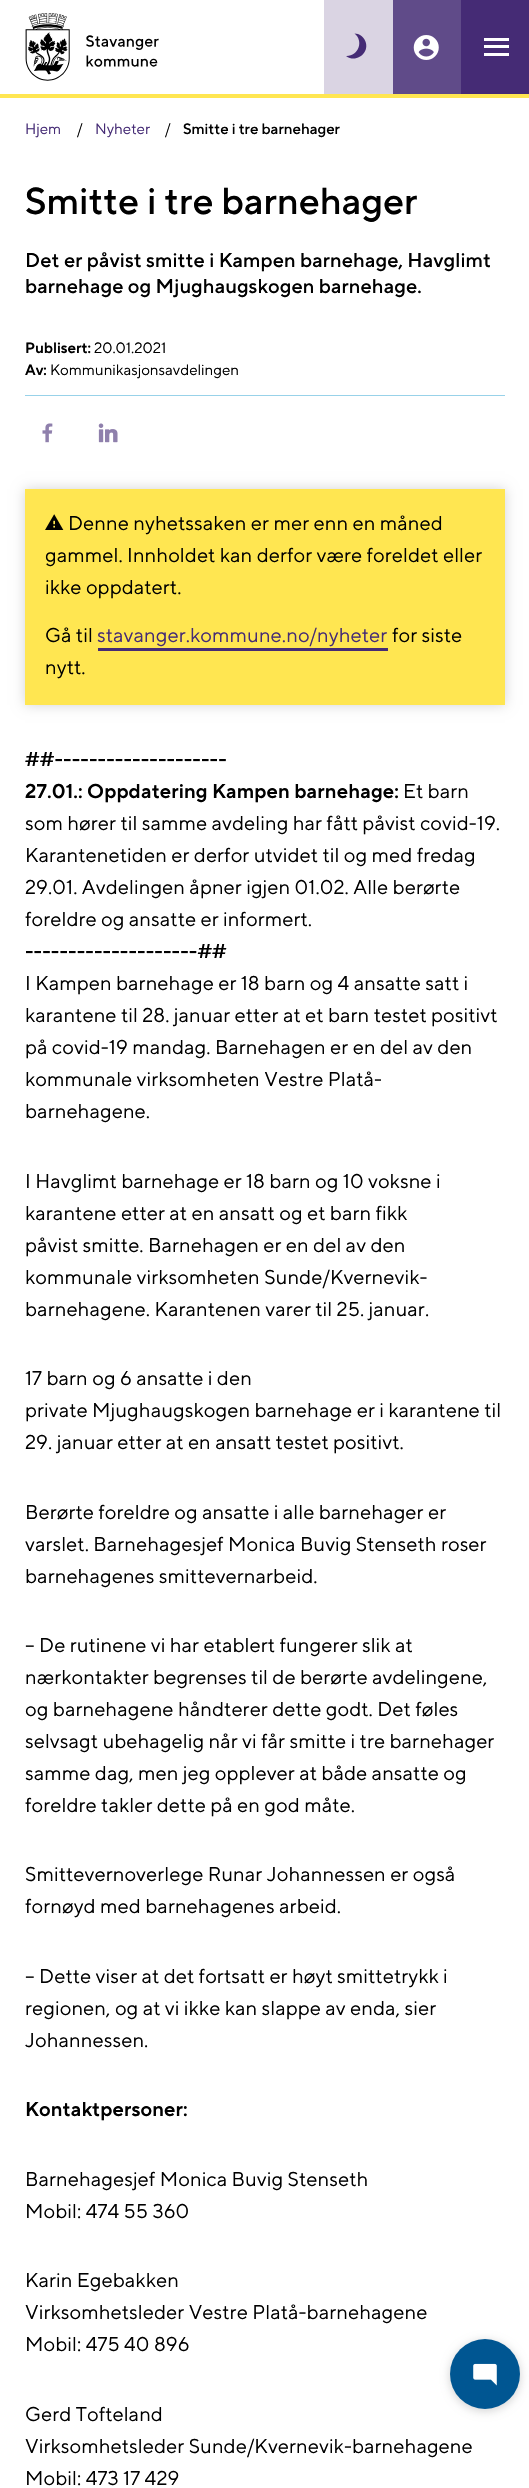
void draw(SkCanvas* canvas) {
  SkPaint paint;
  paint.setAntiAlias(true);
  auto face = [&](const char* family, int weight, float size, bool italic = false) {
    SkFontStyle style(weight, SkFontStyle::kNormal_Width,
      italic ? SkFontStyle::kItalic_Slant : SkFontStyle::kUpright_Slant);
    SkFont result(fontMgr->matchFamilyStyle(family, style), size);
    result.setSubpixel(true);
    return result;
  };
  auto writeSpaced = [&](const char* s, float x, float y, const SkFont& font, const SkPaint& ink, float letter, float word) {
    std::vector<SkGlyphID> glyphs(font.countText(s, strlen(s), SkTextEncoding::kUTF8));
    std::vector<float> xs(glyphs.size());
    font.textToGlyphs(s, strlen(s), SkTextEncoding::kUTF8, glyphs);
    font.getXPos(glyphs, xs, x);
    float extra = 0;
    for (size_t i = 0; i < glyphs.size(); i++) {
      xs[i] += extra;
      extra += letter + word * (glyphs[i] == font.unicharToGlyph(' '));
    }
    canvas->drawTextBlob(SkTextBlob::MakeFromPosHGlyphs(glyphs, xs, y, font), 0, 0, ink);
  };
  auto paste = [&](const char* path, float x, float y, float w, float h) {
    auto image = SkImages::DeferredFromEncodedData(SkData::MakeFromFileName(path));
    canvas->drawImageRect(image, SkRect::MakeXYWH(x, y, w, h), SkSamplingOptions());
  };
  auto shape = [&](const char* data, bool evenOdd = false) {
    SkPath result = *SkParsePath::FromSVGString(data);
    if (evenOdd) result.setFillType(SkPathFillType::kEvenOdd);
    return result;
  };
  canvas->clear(0xffffffff);
  paint.setColor(0xffffe651);
  canvas->drawRect(SkRect::MakeXYWH(0, 94, 529, 4), paint);
  paste("img/1.png", 25, 13, 134, 68);
  paint.setColor(0xffdad4e3);
  canvas->drawRect(SkRect::MakeXYWH(324, 0, 69, 94), paint);
  paint.setColor(0xff452b75);
  canvas->drawPath(shape("M358 34C361 35 363 37 364.5 39.5C371.5 51.5 357 64 346 56C358.5 56.5 364 41 354.5 33.5Z"), paint);
  paint.setColor(0xff604b89);
  canvas->drawRect(SkRect::MakeXYWH(393, 0, 68, 94), paint);
  paste("img/2.png", 413, 35, 26, 25);
  {
    const struct { float x, y, w, h; SkColor color; } items[] = {
      {461, 0, 68, 94, 0xff452b75},
      {484, 45, 25, 3, 0xffffffff},
      {484, 38, 25, 3, 0xffffffff},
      {484, 53, 25, 3, 0xffffffff},
      {25, 395, 480, 1, 0xff98d2e9},
    };
    for (auto [x, y, w, h, color] : items) {
      paint.setColor(color);
      canvas->drawRect(SkRect::MakeXYWH(x, y, w, h), paint);
    }
  }
  paste("img/3.png", 42, 423, 11, 20);
  paste("img/4.png", 98, 423, 20, 20);
  paint.setColor(0xffd4d4d4);
  paint.setMaskFilter(SkMaskFilter::MakeBlur(kNormal_SkBlurStyle, 6));
  canvas->drawRect(SkRect::MakeXYWH(25, 489, 480, 216), paint);
  paint.setMaskFilter(nullptr);
  paint.setColor(0xffffe651);
  canvas->drawRect(SkRect::MakeXYWH(25, 489, 480, 216), paint);
  paste("img/5.png", 45, 514, 19, 16);
  paint.setColor(0xff452b75);
  canvas->drawRect(SkRect::MakeXYWH(98, 648, 290, 3), paint);
  paint.setColor(0x2e000000);
  paint.setMaskFilter(SkMaskFilter::MakeBlur(kNormal_SkBlurStyle, 5));
  canvas->drawRoundRect(SkRect::MakeXYWH(450, 2341, 70, 70), 35, 35, paint);
  paint.setMaskFilter(nullptr);
  paint.setColor(0xff005692);
  canvas->drawCircle(485, 2374, 35, paint);
  paste("img/6.png", 473, 2363, 24, 23);
  auto f0 = face("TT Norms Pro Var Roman", 400, 15);
  paint.setColor(0xff452b75);
  canvas->drawString("Hjem", 25, 134, f0, paint);
  paint.setColor(0xff000000);
  canvas->drawString("/", 77, 134, f0, paint);
  paint.setColor(0xff452b75);
  canvas->drawString("Nyheter", 95, 134, f0, paint);
  paint.setColor(0xff000000);
  canvas->drawString("/", 165, 134, f0, paint);
  auto f1 = face("TT Norms Pro Var Roman", 500, 15);
  canvas->drawString("Smitte i tre barnehager", 183, 134, f1, paint);
  auto f2 = face("TT Norms Pro Var Roman", 500, 37.5f);
  canvas->drawString("Smitte i tre barnehager", 25, 214, f2, paint);
  auto f3 = face("TT Norms Pro Var Roman", 500, 20);
  writeSpaced("Det er påvist smitte i Kampen barnehage, Havglimt", 25, 267, f3, paint, 0.12f, 0);
  writeSpaced("barnehage og Mjughaugskogen barnehage.", 25, 293, f3, paint, 0.12f, 0);
  auto f4 = face("TT Norms Pro Var Roman", 600, 15);
  canvas->drawString("Publisert:", 25, 353, f4, paint);
  canvas->drawString("20.01.2021", 94, 353, f0, paint);
  canvas->drawString("Av:", 25, 375, f4, paint);
  canvas->drawString("Kommunikasjonsavdelingen", 50, 375, f0, paint);
  auto f5 = face("TT Norms Pro Var Roman", 400, 20);
  {
    const struct { const char* s; float x, y; } items[] = {
      {"Denne nyhetssaken er mer enn en måned", 68, 530},
      {"gammel. Innholdet kan derfor være foreldet eller", 45, 562},
      {"ikke oppdatert.", 45, 594},
      {"Gå til", 45, 642},
    };
    for (auto [s, x, y] : items) {
      writeSpaced(s, x, y, f5, paint, 0.12f, 0);
    }
  }
  paint.setColor(0xff452b75);
  writeSpaced("stavanger.kommune.no/nyheter", 97, 642, f5, paint, 0.12f, 0);
  paint.setColor(0xff000000);
  writeSpaced("for siste", 392, 642, f5, paint, 0.12f, 0);
  writeSpaced("nytt.", 45, 674, f5, paint, 0.12f, 0);
  auto f6 = face("TT Norms Pro Var Roman", 600, 20);
  writeSpaced("##--------------------", 25, 766, f6, paint, 0.12f, 0);
  writeSpaced("27.01.: Oppdatering Kampen barnehage:", 25, 798, f6, paint, 0.12f, 0);
  {
    const struct { const char* s; float x, y; } items[] = {
      {"Et barn", 403, 798},
      {"som hører til samme avdeling har fått påvist covid-19.", 25, 830},
      {"Karantenetiden er derfor utvidet til og med fredag", 25, 862},
      {"29.01. Avdelingen åpner igjen 01.02. Alle berørte", 25, 894},
      {"foreldre og ansatte er informert.", 25, 926},
    };
    for (auto [s, x, y] : items) {
      writeSpaced(s, x, y, f5, paint, 0.12f, 0);
    }
  }
  writeSpaced("--------------------##", 25, 958, f6, paint, 0.12f, 0);
  {
    const struct { const char* s; float x, y; } items[] = {
      {"I Kampen barnehage er 18 barn og 4 ansatte satt i", 25, 990},
      {"karantene til 28. januar etter at et barn testet positivt", 25, 1022},
      {"på covid-19 mandag. Barnehagen er en del av den", 25, 1054},
      {"kommunale virksomheten Vestre Platå-", 25, 1086},
      {"barnehagene.", 25, 1118},
      {"I Havglimt barnehage er 18 barn og 10 voksne i", 25, 1188},
      {"karantene etter at en ansatt og et barn fikk", 25, 1220},
      {"påvist smitte. Barnehagen er en del av den", 25, 1252},
      {"kommunale virksomheten Sunde/Kvernevik-", 25, 1284},
      {"barnehagene. Karantenen varer til 25. januar.", 25, 1316},
      {"17 barn og 6 ansatte i den", 25, 1385},
      {"private Mjughaugskogen barnehage er i karantene til", 25, 1417},
      {"29. januar etter at en ansatt testet positivt.", 25, 1449},
      {"Berørte foreldre og ansatte i alle barnehager er", 25, 1519},
      {"varslet. Barnehagesjef Monica Buvig Stenseth roser", 25, 1551},
      {"barnehagenes smittevernarbeid.", 25, 1583},
      {"– De rutinene vi har etablert fungerer slik at", 25, 1652},
      {"nærkontakter begrenses til de berørte avdelingene,", 25, 1684},
      {"og barnehagene håndterer dette godt. Det føles", 25, 1716},
      {"selvsagt ubehagelig når vi får smitte i tre barnehager", 25, 1748},
      {"samme dag, men jeg opplever at både ansatte og", 25, 1780},
      {"foreldre takler dette på en god måte.", 25, 1812},
      {"Smittevernoverlege Runar Johannessen er også", 25, 1881},
      {"fornøyd med barnehagenes arbeid.", 25, 1913},
      {"– Dette viser at det fortsatt er høyt smittetrykk i", 25, 1983},
      {"regionen, og at vi ikke kan slappe av enda, sier", 25, 2015},
      {"Johannessen.", 25, 2047},
    };
    for (auto [s, x, y] : items) {
      writeSpaced(s, x, y, f5, paint, 0.12f, 0);
    }
  }
  writeSpaced("Kontaktpersoner:", 25, 2116, f6, paint, 0.12f, 0);
  {
    const struct { const char* s; float x, y; } items[] = {
      {"Barnehagesjef Monica Buvig Stenseth", 25, 2186},
      {"Mobil: 474 55 360", 25, 2218},
      {"Karin Egebakken", 25, 2287},
      {"Virksomhetsleder Vestre Platå-barnehagene", 25, 2319},
      {"Mobil: 475 40 896", 25, 2351},
      {"Gerd Tofteland", 25, 2421},
      {"Virksomhetsleder Sunde/Kvernevik-barnehagene", 25, 2453},
      {"Mobil: 473 17 429", 25, 2485},
    };
    for (auto [s, x, y] : items) {
      writeSpaced(s, x, y, f5, paint, 0.12f, 0);
    }
  }
}
